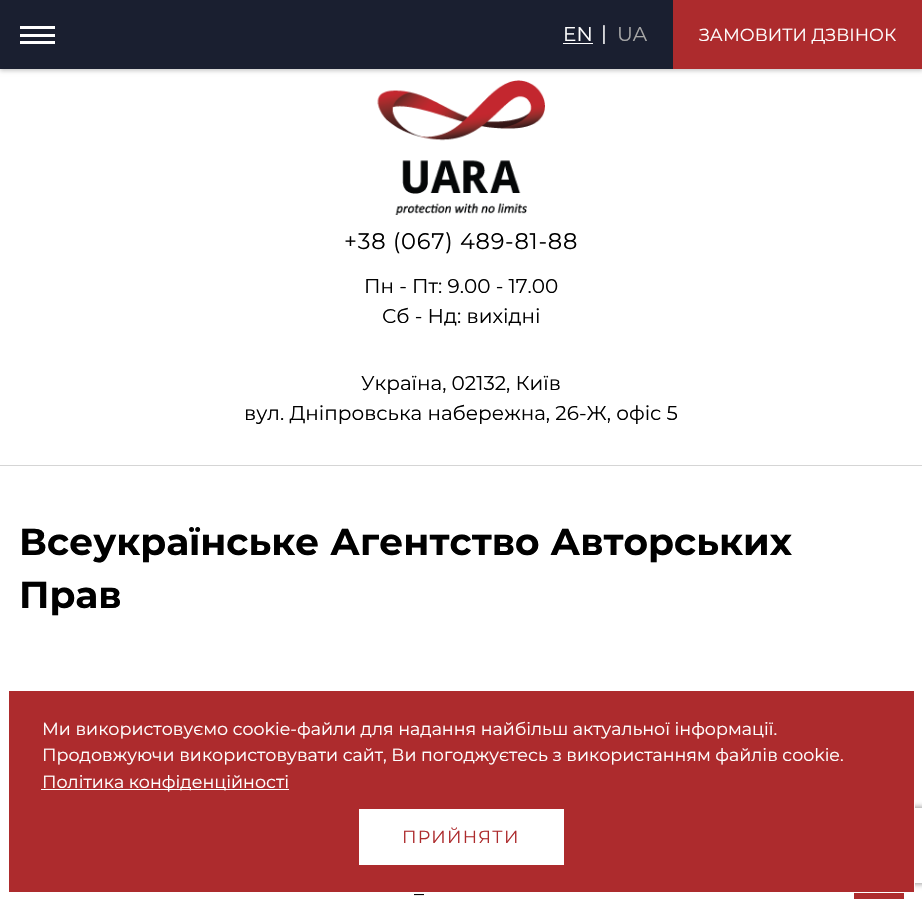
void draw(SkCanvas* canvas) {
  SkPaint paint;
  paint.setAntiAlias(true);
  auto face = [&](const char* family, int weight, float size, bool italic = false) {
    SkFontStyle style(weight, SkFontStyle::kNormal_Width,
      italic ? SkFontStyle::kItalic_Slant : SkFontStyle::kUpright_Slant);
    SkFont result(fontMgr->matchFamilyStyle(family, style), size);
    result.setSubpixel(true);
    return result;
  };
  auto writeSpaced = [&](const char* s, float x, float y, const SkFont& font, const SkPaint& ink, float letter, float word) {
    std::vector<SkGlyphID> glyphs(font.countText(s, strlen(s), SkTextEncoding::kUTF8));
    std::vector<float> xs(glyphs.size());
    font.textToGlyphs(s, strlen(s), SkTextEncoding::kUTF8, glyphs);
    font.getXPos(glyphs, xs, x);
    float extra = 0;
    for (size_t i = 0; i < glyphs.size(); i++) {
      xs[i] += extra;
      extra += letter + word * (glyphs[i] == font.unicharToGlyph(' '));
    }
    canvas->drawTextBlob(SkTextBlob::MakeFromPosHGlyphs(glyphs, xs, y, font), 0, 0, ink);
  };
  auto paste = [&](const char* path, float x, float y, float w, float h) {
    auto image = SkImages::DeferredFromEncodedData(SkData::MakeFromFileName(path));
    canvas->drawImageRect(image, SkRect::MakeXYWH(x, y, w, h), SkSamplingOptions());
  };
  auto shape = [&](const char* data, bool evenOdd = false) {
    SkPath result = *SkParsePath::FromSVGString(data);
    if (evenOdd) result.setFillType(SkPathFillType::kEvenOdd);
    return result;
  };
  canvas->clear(0xffffffff);
  paint.setColor(0xffd5d5d5);
  canvas->drawRect(SkRect::MakeXYWH(0, 465, 922, 1), paint);
  paint.setColor(0x33000000);
  paint.setMaskFilter(SkMaskFilter::MakeBlur(kNormal_SkBlurStyle, 2));
  canvas->drawRect(SkRect::MakeXYWH(0, 3, 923, 68), paint);
  paint.setMaskFilter(nullptr);
  {
    const struct { float x, y, w, h; SkColor color; } items[] = {
      {0, 0, 673, 69, 0xff1a1f30},
      {20, 26, 35, 3, 0xffffffff},
      {20, 34, 35, 3, 0xffffffff},
      {20, 41, 35, 3, 0xffffffff},
      {563, 43, 30, 1, 0xffffffff},
      {673, 0, 249, 69, 0xffad2b2d},
    };
    for (auto [x, y, w, h, color] : items) {
      paint.setColor(color);
      canvas->drawRect(SkRect::MakeXYWH(x, y, w, h), paint);
    }
  }
  paste("img/1.png", 377, 80, 168, 135);
  canvas->save();
  canvas->clipPath(shape("M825 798H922V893H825ZM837.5 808H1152.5C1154 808 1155 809 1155 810.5V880.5C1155 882 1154 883 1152.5 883H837.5C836 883 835 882 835 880.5V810.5C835 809 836 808 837.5 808Z", true), true);
  paint.setColor(0xff808080);
  paint.setMaskFilter(SkMaskFilter::MakeBlur(kNormal_SkBlurStyle, 3));
  canvas->drawRoundRect(SkRect::MakeXYWH(835, 808, 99, 75), 2.5f, 2.5f, paint);
  paint.setMaskFilter(nullptr);
  canvas->restore();
  paint.setColor(0xffad2b2d);
  canvas->drawRect(SkRect::MakeXYWH(8.5f, 690.5f, 906, 202), paint);
  paint.setStroke(true);
  paint.setStrokeWidth(1);
  paint.setColor(0xffffffff);
  canvas->drawRect(SkRect::MakeXYWH(8.5f, 690.5f, 906, 202), paint);
  paint.setStroke(false);
  {
    const struct { float x, y, w, h; SkColor color; } items[] = {
      {41, 789, 248, 1, 0xffffffff},
      {359, 809, 205, 56, 0xffffffff},
      {854, 893, 50, 6, 0xffad2b2d},
    };
    for (auto [x, y, w, h, color] : items) {
      paint.setColor(color);
      canvas->drawRect(SkRect::MakeXYWH(x, y, w, h), paint);
    }
  }
  auto f0 = face("Montserrat", 400, 20);
  paint.setColor(0xffffffff);
  canvas->drawString("EN", 563, 41, f0, paint);
  canvas->drawString("|", 601, 40, f0, paint);
  paint.setColor(0xffa7a7a7);
  canvas->drawString("UA", 617, 41, f0, paint);
  auto f1 = face("Montserrat", 400, 17.5f);
  paint.setColor(0xffffffff);
  canvas->drawString("ЗАМОВИТИ ДЗВІНОК", 699, 41, f1, paint);
  auto f2 = face("Montserrat", 400, 22.5f);
  paint.setColor(0xff000000);
  writeSpaced("+38 (067) 489-81-88", 344, 249, f2, paint, 0.75f, 0);
  {
    const struct { const char* s; float x, y; } items[] = {
      {"Пн - Пт: 9.00 - 17.00", 364, 293},
      {"Сб - Нд: вихідні", 382, 323},
      {"Україна, 02132, Київ", 361, 390},
      {"вул. Дніпровська набережна, 26-Ж, офіс 5", 244, 420},
    };
    for (auto [s, x, y] : items) {
      canvas->drawString(s, x, y, f0, paint);
    }
  }
  auto f3 = face("Montserrat", 700, 37.5f);
  canvas->drawString("Всеукраїнське Агентство Авторських", 19, 555, f3, paint);
  canvas->drawString("Прав", 19, 608, f3, paint);
  canvas->drawString("–", 414, 900, f0, paint);
  paint.setColor(0xffffffff);
  {
    const struct { const char* s; float x, y; } items[] = {
      {"Ми використовуємо cookie-файли для надання найбільш актуальної інформації.", 42, 735},
      {"Продовжуючи використовувати сайт, Ви погоджуєтесь з використанням файлів cookie.", 42, 761},
      {"Політика конфіденційності", 42, 788},
    };
    for (auto [s, x, y] : items) {
      canvas->drawString(s, x, y, f1, paint);
    }
  }
  paint.setColor(0xffad2b2d);
  writeSpaced("ПРИЙНЯТИ", 402, 843, f1, paint, 1.25f, 0);
}
